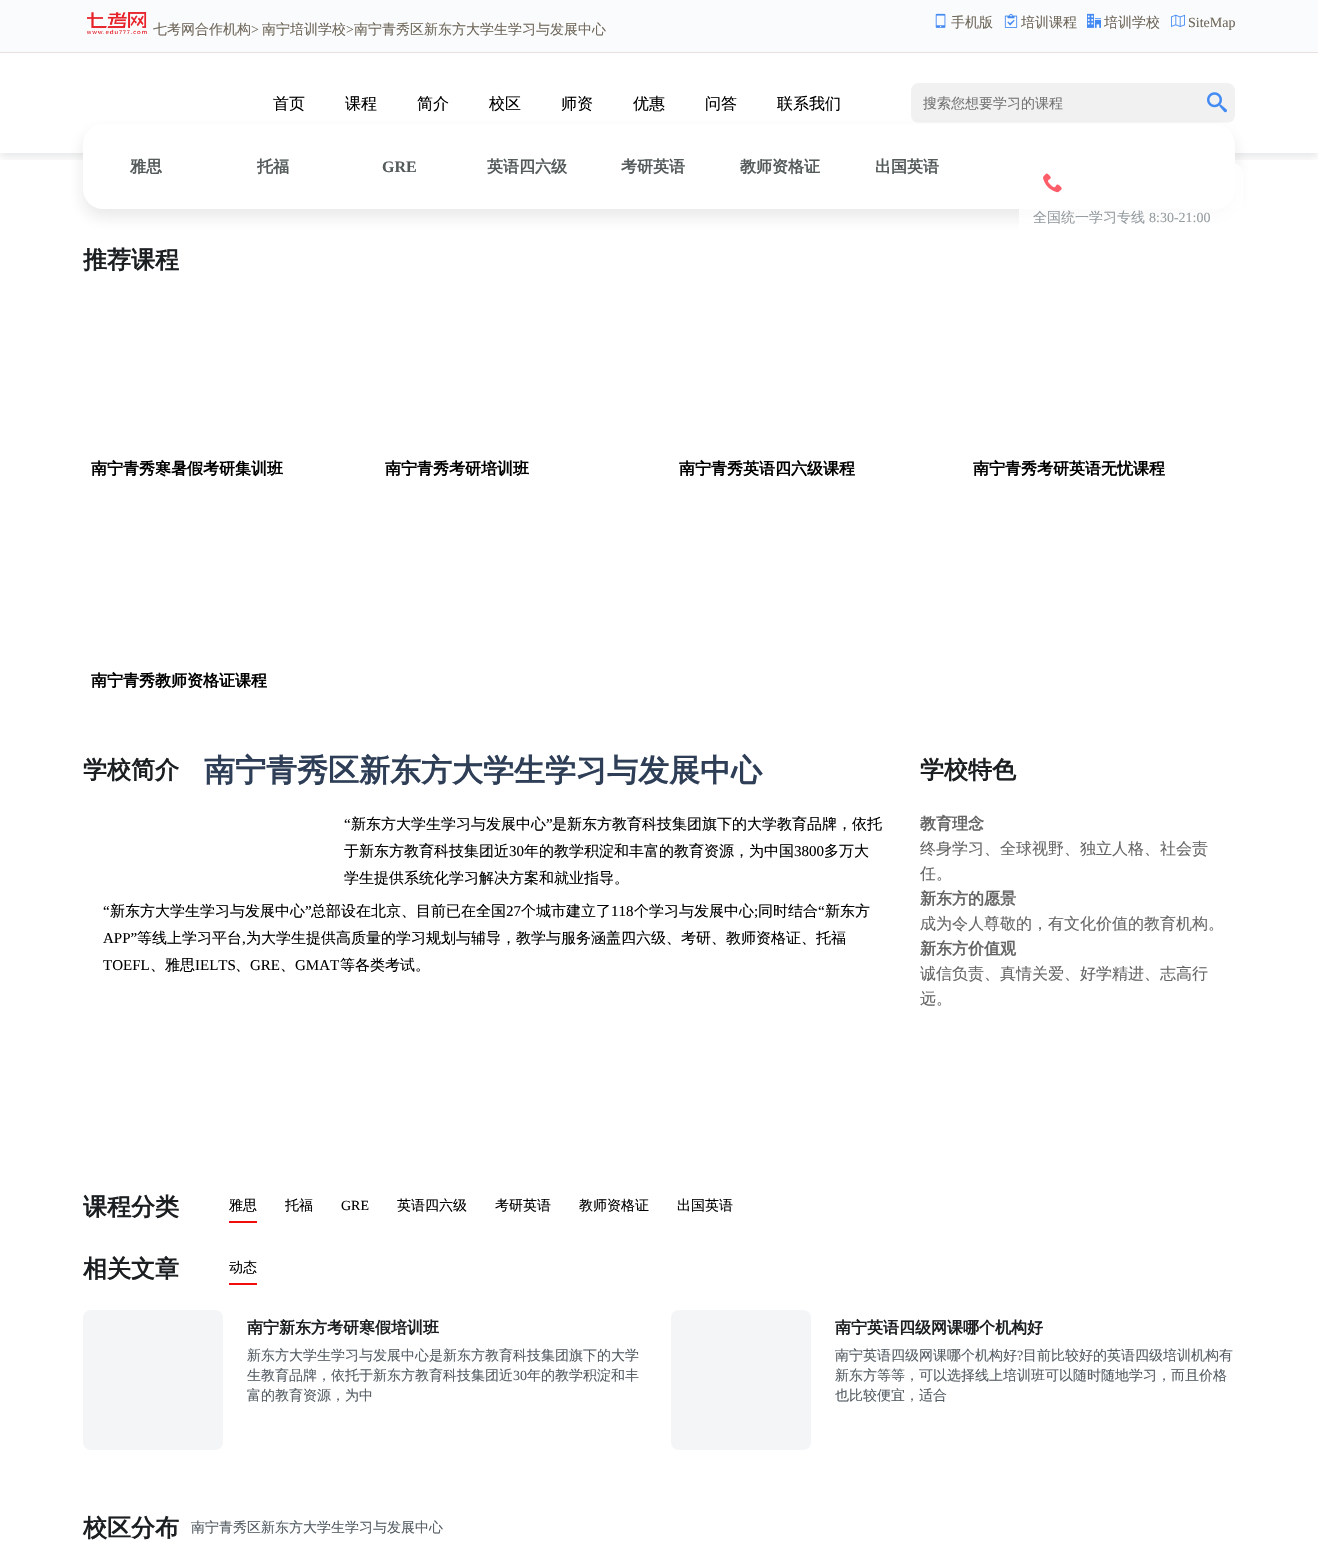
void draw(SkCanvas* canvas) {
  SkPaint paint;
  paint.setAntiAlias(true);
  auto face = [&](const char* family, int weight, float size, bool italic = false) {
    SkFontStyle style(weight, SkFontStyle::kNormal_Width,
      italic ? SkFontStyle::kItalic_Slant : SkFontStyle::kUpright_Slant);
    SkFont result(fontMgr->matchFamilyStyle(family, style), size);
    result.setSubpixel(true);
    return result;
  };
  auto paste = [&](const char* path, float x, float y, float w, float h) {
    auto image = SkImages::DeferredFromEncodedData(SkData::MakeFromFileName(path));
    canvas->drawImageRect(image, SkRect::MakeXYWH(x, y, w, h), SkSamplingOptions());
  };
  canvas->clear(0xffffffff);
  canvas->save();
  canvas->clipRect(SkRect::MakeXYWH(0, 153, 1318, 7));
  paint.setColor(0x1a07111b);
  paint.setMaskFilter(SkMaskFilter::MakeBlur(kNormal_SkBlurStyle, 4));
  canvas->drawRect(SkRect::MakeXYWH(0, 4, 1318, 153), paint);
  paint.setMaskFilter(nullptr);
  canvas->restore();
  paint.setColor(0xfffafbfc);
  canvas->drawRect(SkRect::MakeXYWH(0, 0, 1318, 52), paint);
  paint.setColor(0xffe9dfdf);
  canvas->drawRect(SkRect::MakeXYWH(0, 52, 1318, 1), paint);
  paste("img/1.png", 87, 12, 60, 22);
  paste("img/2.png", 935, 13, 11, 15);
  paste("img/3.png", 1004, 13, 14, 15);
  paste("img/4.png", 1087, 13, 14, 15);
  paste("img/5.png", 1171, 14, 14, 13);
  paint.setColor(0xfff1f1f1);
  canvas->drawRoundRect(SkRect::MakeXYWH(911, 83, 324, 40), 8, 8, paint);
  paint.setColor(0x66ffffff);
  canvas->drawRect(SkRect::MakeXYWH(915, 122, 316, 1), paint);
  paste("img/6.png", 1207, 92, 20, 21);
  paint.setColor(0x1a1c1f21);
  paint.setMaskFilter(SkMaskFilter::MakeBlur(kNormal_SkBlurStyle, 8));
  canvas->drawRoundRect(SkRect::MakeXYWH(83, 132, 1152, 85), 20, 20, paint);
  paint.setMaskFilter(nullptr);
  paint.setColor(0xffffffff);
  canvas->drawRoundRect(SkRect::MakeXYWH(83, 124, 1152, 85), 20, 20, paint);
  paint.setColor(0xccffffff);
  canvas->drawRoundRect(SkRect::MakeXYWH(1019, 163, 224, 83), 10, 10, paint);
  paste("img/7.png", 1043, 173, 19, 20);
  paint.setColor(0xfff20d0d);
  canvas->drawRect(SkRect::MakeXYWH(229, 1221, 28, 2), paint);
  canvas->drawRect(SkRect::MakeXYWH(229, 1283, 28, 2), paint);
  paint.setColor(0xfff3f5f7);
  canvas->drawRoundRect(SkRect::MakeXYWH(83, 1310, 140, 140), 8, 8, paint);
  canvas->drawRoundRect(SkRect::MakeXYWH(671, 1310, 140, 140), 8, 8, paint);
  auto f0 = face("WenQuanYi Zen Hei", 500, 14);
  paint.setColor(0xff6f675a);
  canvas->drawString("七考网合作机构", 153, 34, f0, paint);
  auto f1 = face("Liberation Serif", 400, 14);
  canvas->drawString(">", 251, 34, f1, paint);
  canvas->drawString("南宁培训学校", 262, 34, f0, paint);
  canvas->drawString(">", 346, 34, f1, paint);
  {
    const struct { const char* s; float x, y; } items[] = {
      {"南宁青秀区新东方大学生学习与发展中心", 354, 34},
      {"手机版", 951, 27},
      {"培训课程", 1021, 27},
      {"培训学校", 1104, 27},
    };
    for (auto [s, x, y] : items) {
      canvas->drawString(s, x, y, f0, paint);
    }
  }
  canvas->drawString("SiteMap", 1188, 27, f1, paint);
  auto f2 = face("WenQuanYi Zen Hei", 500, 16);
  paint.setColor(0xff000000);
  {
    const struct { const char* s; float x, y; } items[] = {
      {"首页", 273, 109},
      {"课程", 345, 109},
      {"简介", 417, 109},
      {"校区", 489, 109},
      {"师资", 561, 109},
      {"优惠", 633, 109},
      {"问答", 705, 109},
      {"联系我们", 777, 109},
    };
    for (auto [s, x, y] : items) {
      canvas->drawString(s, x, y, f2, paint);
    }
  }
  paint.setColor(0xff757575);
  canvas->drawString("搜索您想要学习的课程", 923, 108, f0, paint);
  auto f3 = face("WenQuanYi Zen Hei", 700, 16);
  paint.setColor(0xff555b5b);
  canvas->drawString("雅思", 130, 172, f3, paint);
  canvas->drawString("托福", 257, 172, f3, paint);
  auto f4 = face("Liberation Serif", 700, 16);
  canvas->drawString("GRE", 382, 172, f4, paint);
  {
    const struct { const char* s; float x, y; } items[] = {
      {"英语四六级", 487, 172},
      {"考研英语", 621, 172},
      {"教师资格证", 740, 172},
      {"出国英语", 875, 172},
    };
    for (auto [s, x, y] : items) {
      canvas->drawString(s, x, y, f3, paint);
    }
  }
  paint.setColor(0xff959ca0);
  canvas->drawString("全国统一学习专线", 1033, 222, f0, paint);
  canvas->drawString("8:30-21:00", 1149, 222, f1, paint);
  auto f5 = face("WenQuanYi Zen Hei", 700, 24);
  paint.setColor(0xff1c1f21);
  canvas->drawString("推荐课程", 83, 268, f5, paint);
  paint.setColor(0xff000000);
  {
    const struct { const char* s; float x, y; } items[] = {
      {"南宁青秀寒暑假考研集训班", 91, 474},
      {"南宁青秀考研培训班", 385, 474},
      {"南宁青秀英语四六级课程", 679, 474},
      {"南宁青秀考研英语无忧课程", 973, 474},
      {"南宁青秀教师资格证课程", 91, 686},
    };
    for (auto [s, x, y] : items) {
      canvas->drawString(s, x, y, f3, paint);
    }
  }
  paint.setColor(0xff1c1f21);
  canvas->drawString("学校简介", 83, 778, f5, paint);
  auto f6 = face("WenQuanYi Zen Hei", 700, 31);
  paint.setColor(0xff2e3e57);
  canvas->drawString("南宁青秀区新东方大学生学习与发展中心", 204, 781, f6, paint);
  auto f7 = face("Liberation Serif", 400, 15);
  paint.setColor(0xff000000);
  canvas->drawString("“", 344, 829, f7, paint);
  auto f8 = face("WenQuanYi Zen Hei", 500, 15);
  canvas->drawString("新东方大学生学习与发展中心", 351, 829, f8, paint);
  canvas->drawString("”", 546, 829, f7, paint);
  canvas->drawString("是新东方教育科技集团旗下的大学教育品牌，依托", 552, 829, f8, paint);
  canvas->drawString("于新东方教育科技集团近", 344, 856, f8, paint);
  canvas->drawString("30", 509, 856, f7, paint);
  canvas->drawString("年的教学积淀和丰富的教育资源，为中国", 524, 856, f8, paint);
  canvas->drawString("3800", 794, 856, f7, paint);
  canvas->drawString("多万大", 824, 856, f8, paint);
  canvas->drawString("学生提供系统化学习解决方案和就业指导。", 344, 883, f8, paint);
  canvas->drawString("“", 103, 916, f7, paint);
  canvas->drawString("新东方大学生学习与发展中心", 110, 916, f8, paint);
  canvas->drawString("”", 305, 916, f7, paint);
  canvas->drawString("总部设在北京、目前已在全国", 311, 916, f8, paint);
  canvas->drawString("27", 506, 916, f7, paint);
  canvas->drawString("个城市建立了", 521, 916, f8, paint);
  canvas->drawString("118", 611, 916, f7, paint);
  canvas->drawString("个学习与发展中心", 634, 916, f8, paint);
  canvas->drawString("同时结合", 758, 916, f8, paint);
  canvas->drawString("“", 818, 916, f7, paint);
  canvas->drawString("新东方", 825, 916, f8, paint);
  canvas->drawString(";", 754, 916, f7, paint);
  canvas->drawString("APP”", 103, 943, f7, paint);
  canvas->drawString("等线上学习平台", 137, 943, f8, paint);
  canvas->drawString("为大学生提供高质量的学习规划与辅导，教学与服务涵盖四六级、考研、教师资格证、托福", 246, 943, f8, paint);
  canvas->drawString(",", 242, 943, f7, paint);
  canvas->drawString("TOEFL", 103, 970, f7, paint);
  canvas->drawString("、雅思", 150, 970, f8, paint);
  canvas->drawString("IELTS", 195, 970, f7, paint);
  canvas->drawString("、", 235, 970, f8, paint);
  canvas->drawString("GRE", 250, 970, f7, paint);
  canvas->drawString("、", 280, 970, f8, paint);
  canvas->drawString("GMAT", 295, 970, f7, paint);
  canvas->drawString("等各类考试。", 340, 970, f8, paint);
  paint.setColor(0xff1c1f21);
  canvas->drawString("学校特色", 920, 778, f5, paint);
  paint.setColor(0xff666666);
  canvas->drawString("教育理念", 920, 829, f3, paint);
  canvas->drawString("终身学习、全球视野、独立人格、社会责", 920, 854, f2, paint);
  canvas->drawString("任。", 920, 879, f2, paint);
  canvas->drawString("新东方的愿景", 920, 904, f3, paint);
  canvas->drawString("成为令人尊敬的，有文化价值的教育机构。", 920, 929, f2, paint);
  canvas->drawString("新东方价值观", 920, 954, f3, paint);
  canvas->drawString("诚信负责、真情关爱、好学精进、志高行", 920, 979, f2, paint);
  canvas->drawString("远。", 920, 1004, f2, paint);
  paint.setColor(0xff1c1f21);
  canvas->drawString("课程分类", 83, 1215, f5, paint);
  paint.setColor(0xff000000);
  canvas->drawString("雅思", 229, 1210, f0, paint);
  canvas->drawString("托福", 285, 1210, f0, paint);
  canvas->drawString("GRE", 341, 1210, f1, paint);
  {
    const struct { const char* s; float x, y; } items[] = {
      {"英语四六级", 397, 1210},
      {"考研英语", 495, 1210},
      {"教师资格证", 579, 1210},
      {"出国英语", 677, 1210},
    };
    for (auto [s, x, y] : items) {
      canvas->drawString(s, x, y, f0, paint);
    }
  }
  paint.setColor(0xff1c1f21);
  canvas->drawString("相关文章", 83, 1277, f5, paint);
  paint.setColor(0xff000000);
  canvas->drawString("动态", 229, 1272, f0, paint);
  paint.setColor(0xff1c1f21);
  canvas->drawString("南宁新东方考研寒假培训班", 247, 1333, f3, paint);
  paint.setColor(0xff545c63);
  canvas->drawString("新东方大学生学习与发展中心是新东方教育科技集团旗下的大学", 247, 1360, f0, paint);
  canvas->drawString("生教育品牌，依托于新东方教育科技集团近", 247, 1380, f0, paint);
  canvas->drawString("30", 513, 1380, f1, paint);
  canvas->drawString("年的教学积淀和丰", 527, 1380, f0, paint);
  canvas->drawString("富的教育资源，为中", 247, 1400, f0, paint);
  paint.setColor(0xff1c1f21);
  canvas->drawString("南宁英语四级网课哪个机构好", 835, 1333, f3, paint);
  paint.setColor(0xff545c63);
  canvas->drawString("南宁英语四级网课哪个机构好", 835, 1360, f0, paint);
  canvas->drawString("?", 1017, 1360, f1, paint);
  {
    const struct { const char* s; float x, y; } items[] = {
      {"目前比较好的英语四级培训机构有", 1023, 1360},
      {"新东方等等，可以选择线上培训班可以随时随地学习，而且价格", 835, 1380},
      {"也比较便宜，适合", 835, 1400},
    };
    for (auto [s, x, y] : items) {
      canvas->drawString(s, x, y, f0, paint);
    }
  }
  paint.setColor(0xff1c1f21);
  canvas->drawString("校区分布", 83, 1536, f5, paint);
  paint.setColor(0xff545c63);
  canvas->drawString("南宁青秀区新东方大学生学习与发展中心", 191, 1532, f0, paint);
}
